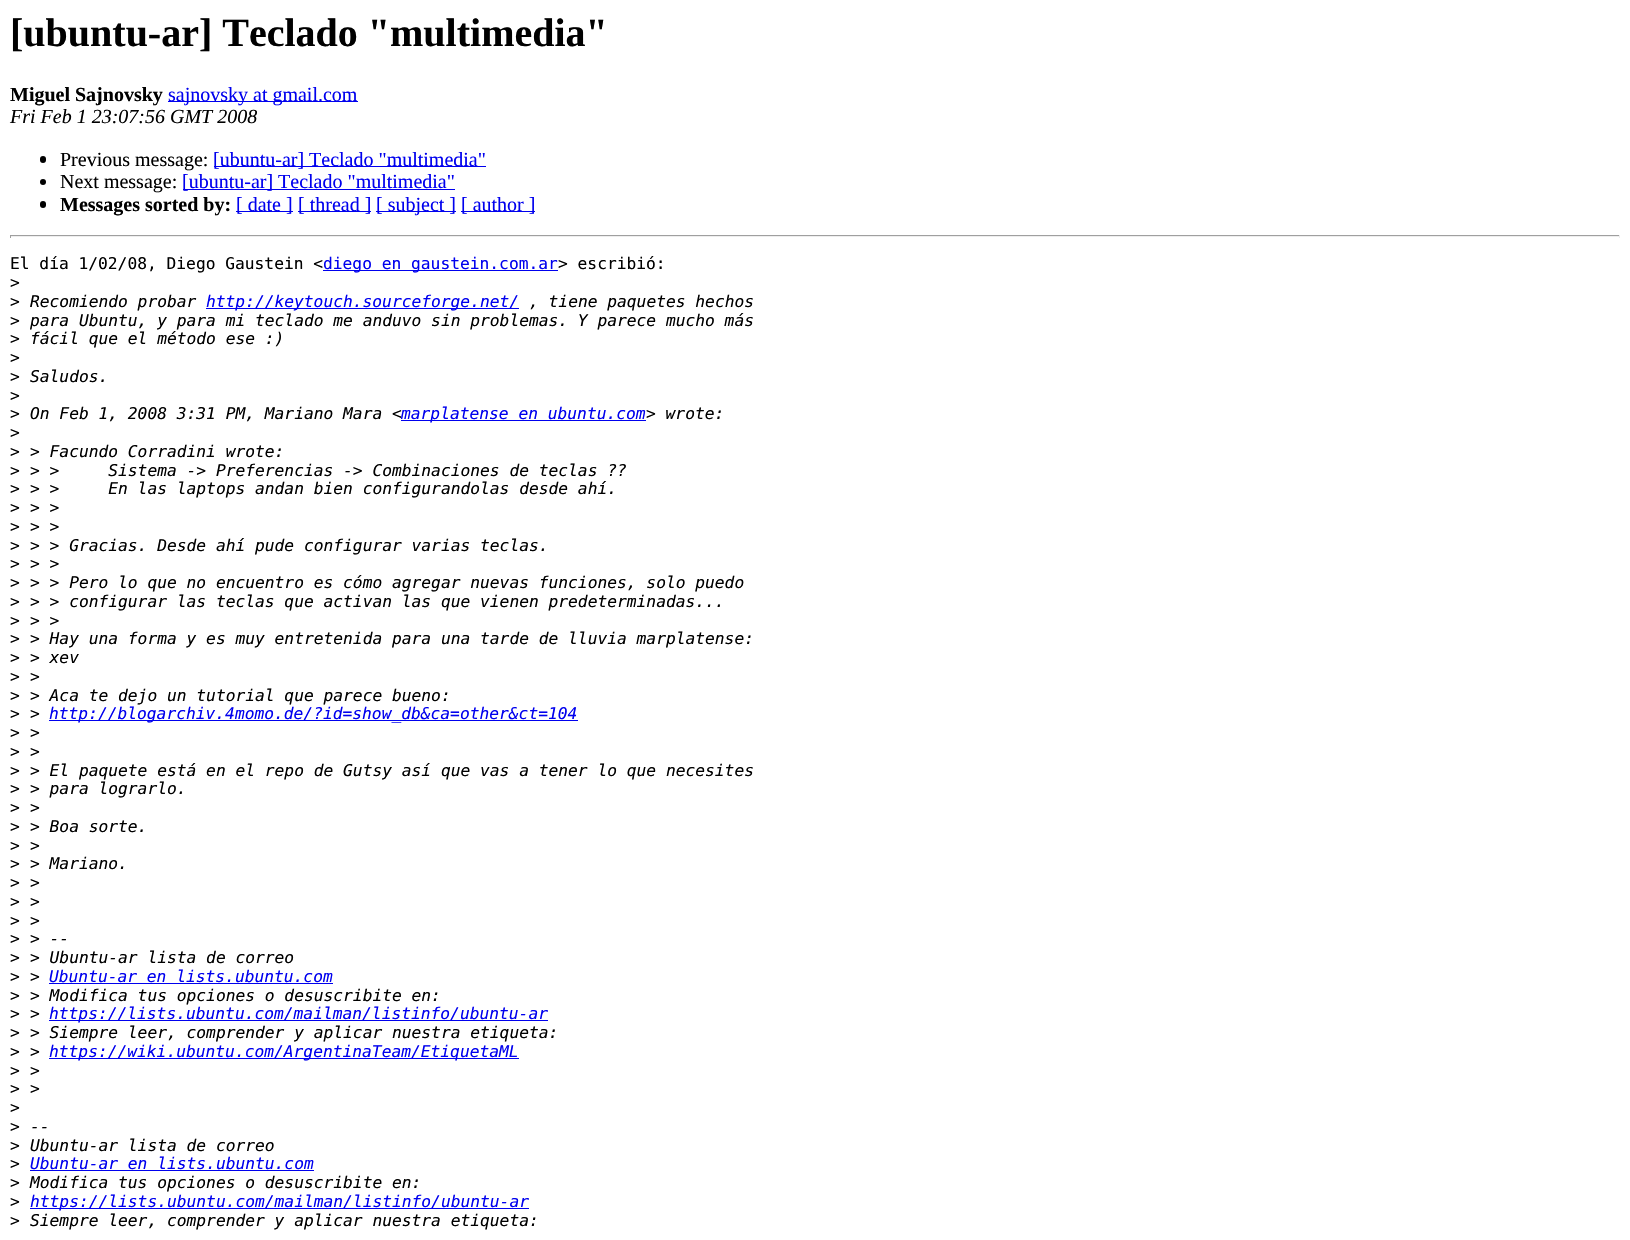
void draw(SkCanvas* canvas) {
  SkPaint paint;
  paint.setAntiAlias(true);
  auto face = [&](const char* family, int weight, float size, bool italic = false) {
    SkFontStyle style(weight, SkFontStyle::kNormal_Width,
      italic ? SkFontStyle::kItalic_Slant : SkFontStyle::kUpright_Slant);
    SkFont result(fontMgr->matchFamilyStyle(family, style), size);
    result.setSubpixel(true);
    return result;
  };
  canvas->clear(0xffffffff);
  paint.setColor(0xff0000ee);
  canvas->drawRect(SkRect::MakeXYWH(168, 101, 190, 1), paint);
  paint.setColor(0xff000000);
  canvas->drawRoundRect(SkRect::MakeXYWH(40, 156, 6, 7), 3, 3, paint);
  paint.setColor(0xff0000ee);
  canvas->drawRect(SkRect::MakeXYWH(214, 166, 272, 1), paint);
  paint.setColor(0xff000000);
  canvas->drawCircle(43, 182, 3, paint);
  paint.setColor(0xff0000ee);
  canvas->drawRect(SkRect::MakeXYWH(183, 189, 272, 1), paint);
  paint.setColor(0xff000000);
  canvas->drawRoundRect(SkRect::MakeXYWH(40, 201, 6, 7), 3, 3, paint);
  {
    const struct { float x, y, w, h; SkColor color; } items[] = {
      {236, 211, 57, 1, 0xff0000ee},
      {298, 211, 73, 1, 0xff0000ee},
      {376, 211, 80, 1, 0xff0000ee},
      {461, 211, 74, 1, 0xff0000ee},
      {10, 235, 1610, 1, 0xff9f9f9f},
      {1619, 235, 1, 3, 0xffeeeeee},
      {10, 236, 1610, 1, 0xffeeeeee},
      {10, 235, 1, 3, 0xff9f9f9f},
      {323, 270, 235, 1, 0xff0000ee},
      {206, 308, 313, 1, 0xff0000ee},
      {401, 420, 245, 1, 0xff0000ee},
      {49, 720, 529, 1, 0xff0000ee},
      {49, 983, 284, 1, 0xff0000ee},
      {49, 1020, 499, 1, 0xff0000ee},
      {49, 1058, 470, 1, 0xff0000ee},
      {30, 1170, 284, 1, 0xff0000ee},
      {30, 1208, 499, 1, 0xff0000ee},
    };
    for (auto [x, y, w, h, color] : items) {
      paint.setColor(color);
      canvas->drawRect(SkRect::MakeXYWH(x, y, w, h), paint);
    }
  }
  auto f0 = face("Liberation Serif", 700, 40);
  paint.setColor(0xff000000);
  canvas->drawString("[ubuntu-ar] Teclado \"multimedia\"", 10, 46, f0, paint);
  auto f1 = face("Liberation Serif", 700, 20);
  canvas->drawString("Miguel Sajnovsky", 10, 101, f1, paint);
  auto f2 = face("Liberation Serif", 400, 20);
  paint.setColor(0xff0000ee);
  canvas->drawString("sajnovsky at gmail.com", 168, 101, f2, paint);
  auto f3 = face("Liberation Serif", 400, 20, true);
  paint.setColor(0xff000000);
  canvas->drawString("Fri Feb 1 23:07:56 GMT 2008", 10, 123, f3, paint);
  canvas->drawString("Previous message:", 60, 166, f2, paint);
  paint.setColor(0xff0000ee);
  canvas->drawString("[ubuntu-ar] Teclado \"multimedia\"", 213, 166, f2, paint);
  paint.setColor(0xff000000);
  canvas->drawString("Next message:", 60, 188, f2, paint);
  paint.setColor(0xff0000ee);
  canvas->drawString("[ubuntu-ar] Teclado \"multimedia\"", 182, 188, f2, paint);
  paint.setColor(0xff000000);
  canvas->drawString("Messages sorted by:", 60, 211, f1, paint);
  paint.setColor(0xff0000ee);
  {
    const struct { const char* s; float x, y; } items[] = {
      {"[ date ]", 236, 211},
      {"[ thread ]", 298, 211},
      {"[ subject ]", 376, 211},
      {"[ author ]", 461, 211},
    };
    for (auto [s, x, y] : items) {
      canvas->drawString(s, x, y, f2, paint);
    }
  }
  auto f4 = face("DejaVu Sans Mono", 400, 16.25f);
  paint.setColor(0xff000000);
  canvas->drawString("El día 1/02/08, Diego Gaustein <", 10, 269, f4, paint);
  paint.setColor(0xff0000ee);
  canvas->drawString("diego en gaustein.com.ar", 323, 269, f4, paint);
  paint.setColor(0xff000000);
  {
    const struct { const char* s; float x, y; } items[] = {
      {"> escribió:", 558, 269},
      {">", 10, 288},
      {">", 10, 307},
    };
    for (auto [s, x, y] : items) {
      canvas->drawString(s, x, y, f4, paint);
    }
  }
  auto f5 = face("DejaVu Sans Mono", 400, 16.25f, true);
  canvas->drawString("Recomiendo probar", 30, 307, f5, paint);
  paint.setColor(0xff0000ee);
  canvas->drawString("http://keytouch.sourceforge.net/", 206, 307, f5, paint);
  paint.setColor(0xff000000);
  canvas->drawString(", tiene paquetes hechos", 529, 307, f5, paint);
  canvas->drawString(">", 10, 326, f4, paint);
  canvas->drawString("para Ubuntu, y para mi teclado me anduvo sin problemas. Y parece mucho más", 30, 326, f5, paint);
  canvas->drawString(">", 10, 344, f4, paint);
  canvas->drawString("fácil que el método ese :)", 30, 344, f5, paint);
  canvas->drawString(">", 10, 363, f4, paint);
  canvas->drawString(">", 10, 382, f4, paint);
  canvas->drawString("Saludos.", 30, 382, f5, paint);
  canvas->drawString(">", 10, 401, f4, paint);
  canvas->drawString(">", 10, 419, f4, paint);
  canvas->drawString("On Feb 1, 2008 3:31 PM, Mariano Mara <", 30, 419, f5, paint);
  paint.setColor(0xff0000ee);
  canvas->drawString("marplatense en ubuntu.com", 401, 419, f5, paint);
  paint.setColor(0xff000000);
  canvas->drawString("> wrote:", 646, 419, f5, paint);
  canvas->drawString(">", 10, 438, f4, paint);
  canvas->drawString(">", 10, 457, f4, paint);
  canvas->drawString("> Facundo Corradini wrote:", 30, 457, f5, paint);
  canvas->drawString(">", 10, 476, f4, paint);
  canvas->drawString("> >     Sistema -> Preferencias -> Combinaciones de teclas ?\077", 30, 476, f5, paint);
  canvas->drawString(">", 10, 494, f4, paint);
  canvas->drawString("> >     En las laptops andan bien configurandolas desde ahí.", 30, 494, f5, paint);
  canvas->drawString(">", 10, 513, f4, paint);
  canvas->drawString("> >", 30, 513, f5, paint);
  canvas->drawString(">", 10, 532, f4, paint);
  canvas->drawString("> >", 30, 532, f5, paint);
  canvas->drawString(">", 10, 551, f4, paint);
  canvas->drawString("> > Gracias. Desde ahí pude configurar varias teclas.", 30, 551, f5, paint);
  canvas->drawString(">", 10, 569, f4, paint);
  canvas->drawString("> >", 30, 569, f5, paint);
  canvas->drawString(">", 10, 588, f4, paint);
  canvas->drawString("> > Pero lo que no encuentro es cómo agregar nuevas funciones, solo puedo", 30, 588, f5, paint);
  canvas->drawString(">", 10, 607, f4, paint);
  canvas->drawString("> > configurar las teclas que activan las que vienen predeterminadas...", 30, 607, f5, paint);
  canvas->drawString(">", 10, 626, f4, paint);
  canvas->drawString("> >", 30, 626, f5, paint);
  canvas->drawString(">", 10, 644, f4, paint);
  canvas->drawString("> Hay una forma y es muy entretenida para una tarde de lluvia marplatense:", 30, 644, f5, paint);
  canvas->drawString(">", 10, 663, f4, paint);
  canvas->drawString("> xev", 30, 663, f5, paint);
  canvas->drawString(">", 10, 682, f4, paint);
  canvas->drawString(">", 30, 682, f5, paint);
  canvas->drawString(">", 10, 701, f4, paint);
  canvas->drawString("> Aca te dejo un tutorial que parece bueno:", 30, 701, f5, paint);
  canvas->drawString(">", 10, 719, f4, paint);
  canvas->drawString(">", 30, 719, f5, paint);
  paint.setColor(0xff0000ee);
  canvas->drawString("http://blogarchiv.4momo.de/?id=show_db&ca=other&ct=104", 49, 719, f5, paint);
  paint.setColor(0xff000000);
  canvas->drawString(">", 10, 738, f4, paint);
  canvas->drawString(">", 30, 738, f5, paint);
  canvas->drawString(">", 10, 757, f4, paint);
  canvas->drawString(">", 30, 757, f5, paint);
  canvas->drawString(">", 10, 776, f4, paint);
  canvas->drawString("> El paquete está en el repo de Gutsy así que vas a tener lo que necesites", 30, 776, f5, paint);
  canvas->drawString(">", 10, 794, f4, paint);
  canvas->drawString("> para lograrlo.", 30, 794, f5, paint);
  canvas->drawString(">", 10, 813, f4, paint);
  canvas->drawString(">", 30, 813, f5, paint);
  canvas->drawString(">", 10, 832, f4, paint);
  canvas->drawString("> Boa sorte.", 30, 832, f5, paint);
  canvas->drawString(">", 10, 851, f4, paint);
  canvas->drawString(">", 30, 851, f5, paint);
  canvas->drawString(">", 10, 869, f4, paint);
  canvas->drawString("> Mariano.", 30, 869, f5, paint);
  canvas->drawString(">", 10, 888, f4, paint);
  canvas->drawString(">", 30, 888, f5, paint);
  canvas->drawString(">", 10, 907, f4, paint);
  canvas->drawString(">", 30, 907, f5, paint);
  canvas->drawString(">", 10, 926, f4, paint);
  canvas->drawString(">", 30, 926, f5, paint);
  canvas->drawString(">", 10, 944, f4, paint);
  canvas->drawString("> --", 30, 944, f5, paint);
  canvas->drawString(">", 10, 963, f4, paint);
  canvas->drawString("> Ubuntu-ar lista de correo", 30, 963, f5, paint);
  canvas->drawString(">", 10, 982, f4, paint);
  canvas->drawString(">", 30, 982, f5, paint);
  paint.setColor(0xff0000ee);
  canvas->drawString("Ubuntu-ar en lists.ubuntu.com", 49, 982, f5, paint);
  paint.setColor(0xff000000);
  canvas->drawString(">", 10, 1001, f4, paint);
  canvas->drawString("> Modifica tus opciones o desuscribite en:", 30, 1001, f5, paint);
  canvas->drawString(">", 10, 1019, f4, paint);
  canvas->drawString(">", 30, 1019, f5, paint);
  paint.setColor(0xff0000ee);
  canvas->drawString("https://lists.ubuntu.com/mailman/listinfo/ubuntu-ar", 49, 1019, f5, paint);
  paint.setColor(0xff000000);
  canvas->drawString(">", 10, 1038, f4, paint);
  canvas->drawString("> Siempre leer, comprender y aplicar nuestra etiqueta:", 30, 1038, f5, paint);
  canvas->drawString(">", 10, 1057, f4, paint);
  canvas->drawString(">", 30, 1057, f5, paint);
  paint.setColor(0xff0000ee);
  canvas->drawString("https://wiki.ubuntu.com/ArgentinaTeam/EtiquetaML", 49, 1057, f5, paint);
  paint.setColor(0xff000000);
  canvas->drawString(">", 10, 1076, f4, paint);
  canvas->drawString(">", 30, 1076, f5, paint);
  canvas->drawString(">", 10, 1094, f4, paint);
  canvas->drawString(">", 30, 1094, f5, paint);
  canvas->drawString(">", 10, 1113, f4, paint);
  canvas->drawString(">", 10, 1132, f4, paint);
  canvas->drawString("--", 30, 1132, f5, paint);
  canvas->drawString(">", 10, 1151, f4, paint);
  canvas->drawString("Ubuntu-ar lista de correo", 30, 1151, f5, paint);
  canvas->drawString(">", 10, 1169, f4, paint);
  paint.setColor(0xff0000ee);
  canvas->drawString("Ubuntu-ar en lists.ubuntu.com", 30, 1169, f5, paint);
  paint.setColor(0xff000000);
  canvas->drawString(">", 10, 1188, f4, paint);
  canvas->drawString("Modifica tus opciones o desuscribite en:", 30, 1188, f5, paint);
  canvas->drawString(">", 10, 1207, f4, paint);
  paint.setColor(0xff0000ee);
  canvas->drawString("https://lists.ubuntu.com/mailman/listinfo/ubuntu-ar", 30, 1207, f5, paint);
  paint.setColor(0xff000000);
  canvas->drawString(">", 10, 1226, f4, paint);
  canvas->drawString("Siempre leer, comprender y aplicar nuestra etiqueta:", 30, 1226, f5, paint);
}
